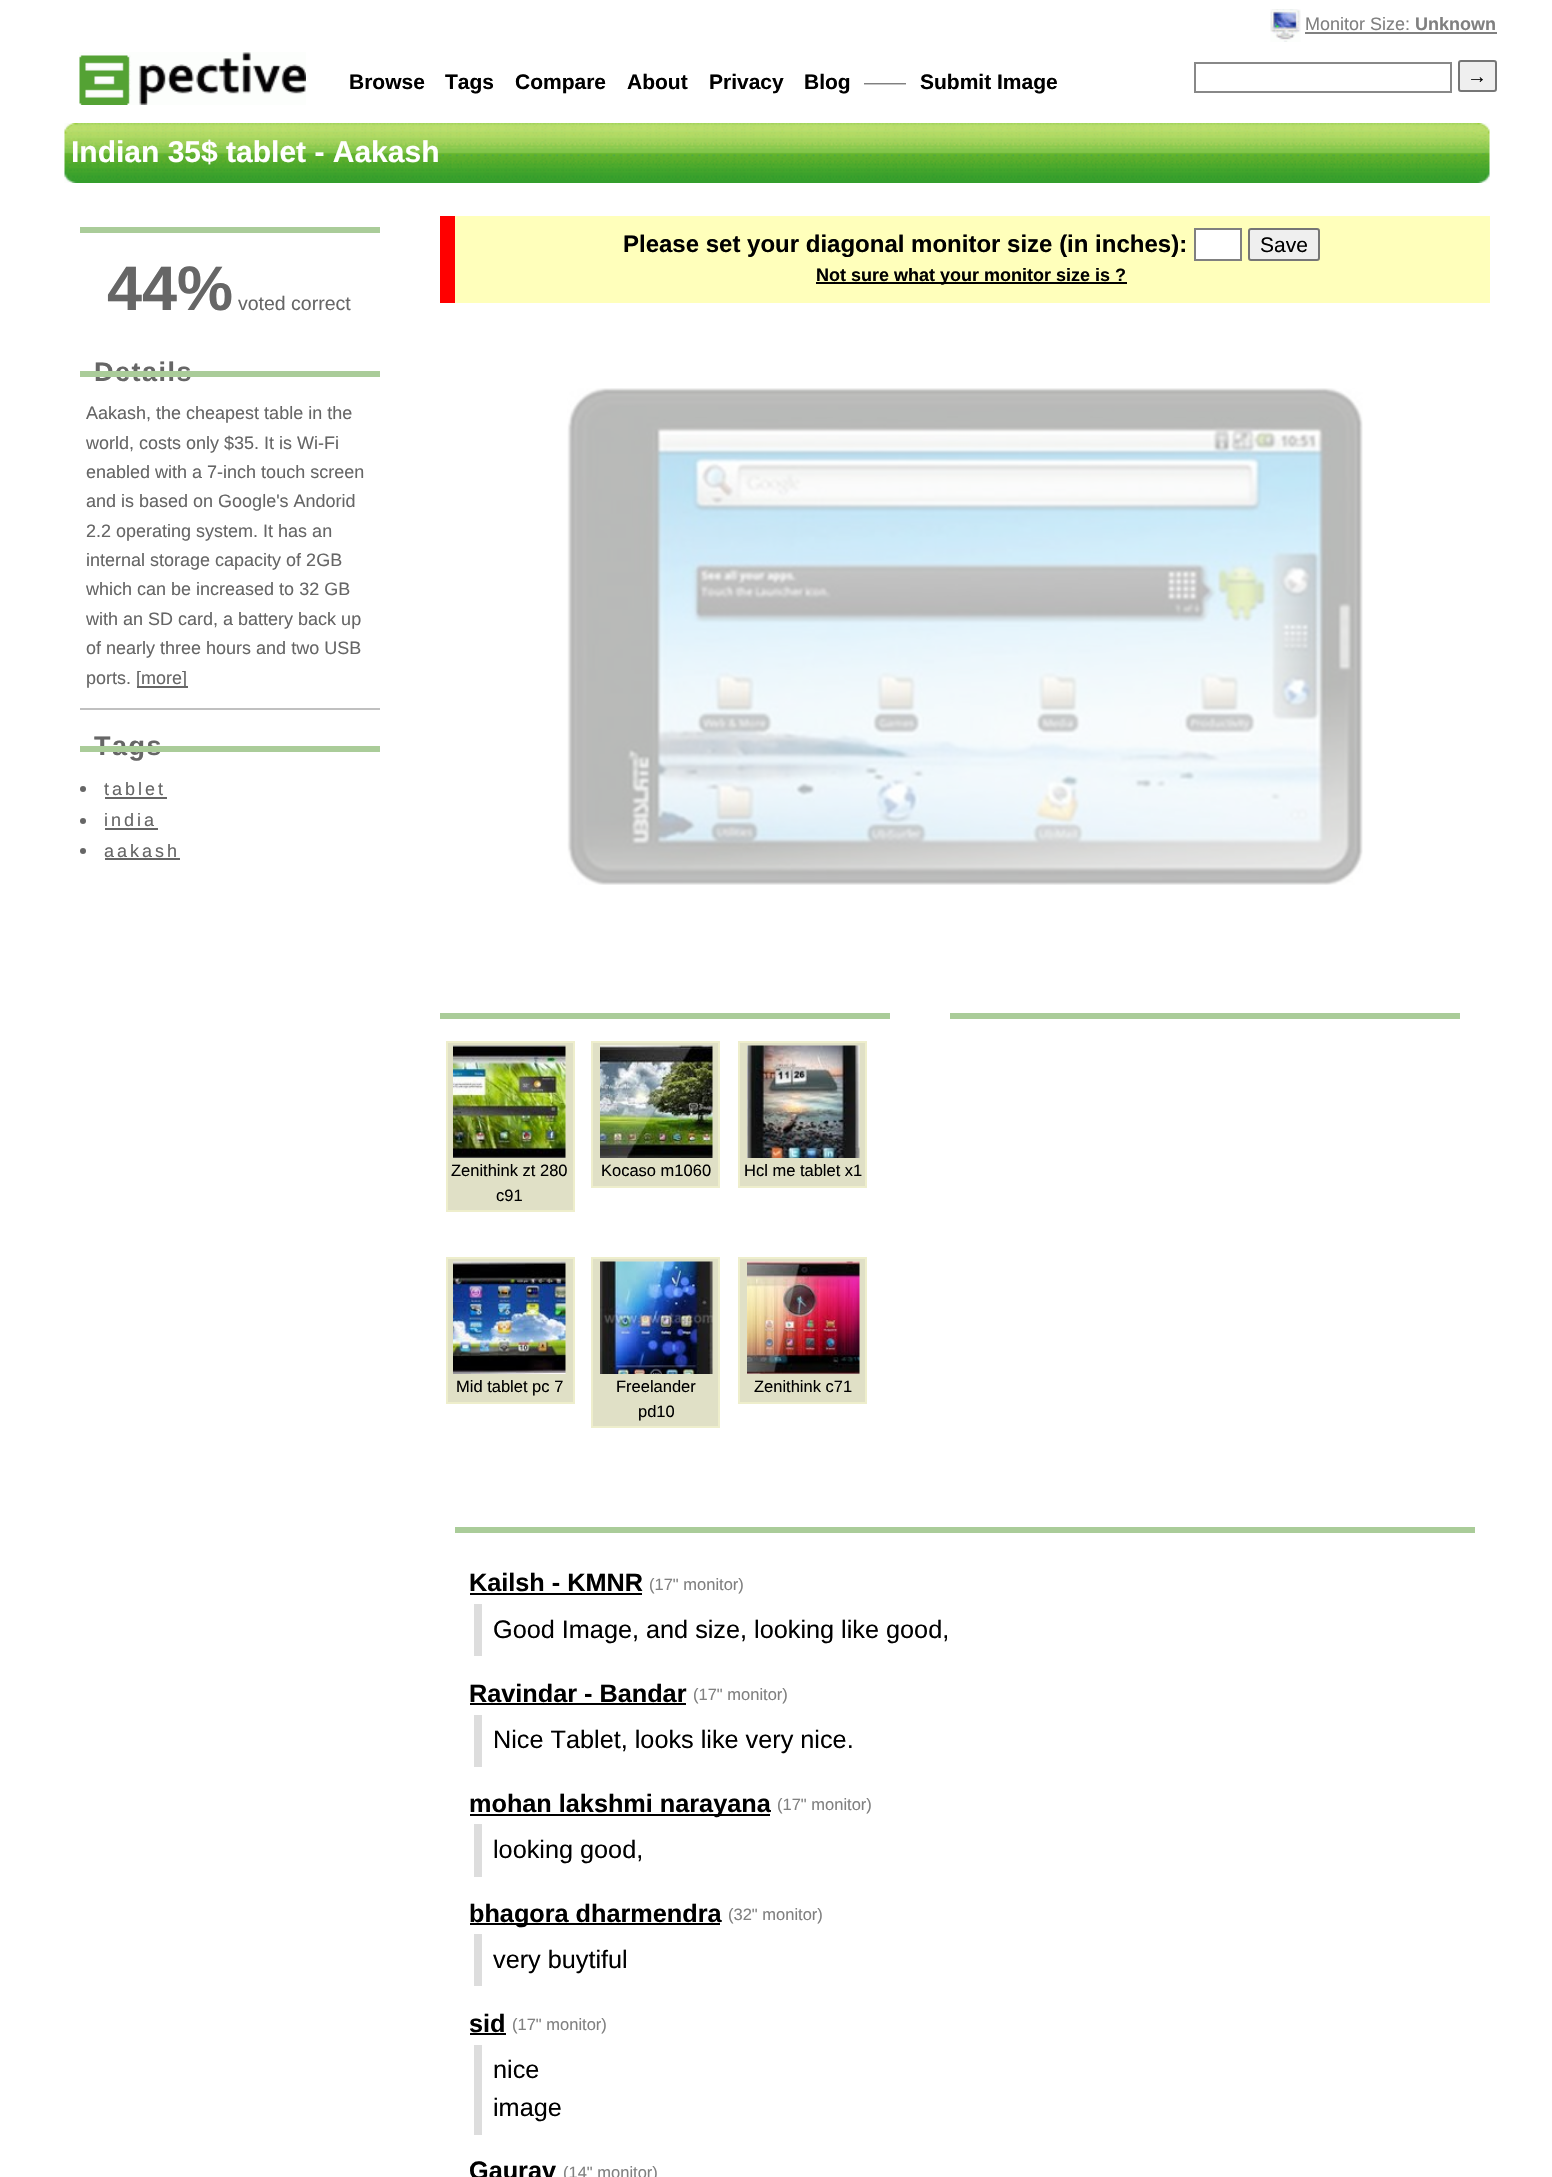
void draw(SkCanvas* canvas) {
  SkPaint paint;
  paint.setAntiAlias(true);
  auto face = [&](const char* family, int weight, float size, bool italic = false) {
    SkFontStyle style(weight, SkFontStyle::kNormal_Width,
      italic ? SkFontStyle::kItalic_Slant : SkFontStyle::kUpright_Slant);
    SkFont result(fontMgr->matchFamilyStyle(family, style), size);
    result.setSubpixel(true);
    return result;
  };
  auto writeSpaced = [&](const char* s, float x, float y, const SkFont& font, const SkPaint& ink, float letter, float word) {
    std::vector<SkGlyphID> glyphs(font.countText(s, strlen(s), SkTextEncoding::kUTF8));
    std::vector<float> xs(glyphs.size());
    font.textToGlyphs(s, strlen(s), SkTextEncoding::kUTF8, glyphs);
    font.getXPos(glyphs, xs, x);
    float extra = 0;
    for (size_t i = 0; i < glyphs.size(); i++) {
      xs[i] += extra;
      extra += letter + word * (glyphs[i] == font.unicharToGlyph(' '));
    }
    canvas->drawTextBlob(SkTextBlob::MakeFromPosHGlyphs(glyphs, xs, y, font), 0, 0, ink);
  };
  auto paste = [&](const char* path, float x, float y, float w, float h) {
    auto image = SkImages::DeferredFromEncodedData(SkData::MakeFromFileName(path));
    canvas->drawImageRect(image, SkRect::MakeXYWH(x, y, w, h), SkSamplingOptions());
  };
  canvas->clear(0xffffffff);
  paste("img/1.png", 1270, 9, 31, 33);
  paint.setColor(0xff808080);
  canvas->drawRect(SkRect::MakeXYWH(1305, 32, 192, 2), paint);
  paste("img/2.png", 79, 52, 227, 53);
  paint.setStroke(true);
  paint.setStrokeWidth(2);
  paint.setColor(0xff888888);
  canvas->drawRect(SkRect::MakeXYWH(1195, 63, 256, 29), paint);
  paint.setStroke(false);
  paint.setColor(0xffefefef);
  canvas->drawRoundRect(SkRect::MakeXYWH(1459, 61, 37, 30), 2, 2, paint);
  paint.setStroke(true);
  paint.setColor(0xff767676);
  canvas->drawRoundRect(SkRect::MakeXYWH(1459, 61, 37, 30), 2, 2, paint);
  paste("img/3.png", 64, 123, 1426, 60);
  paint.setStroke(false);
  {
    const struct { float x, y, w, h; SkColor color; } items[] = {
      {80, 227, 300, 6, 0xffaacc99},
      {80, 708, 300, 2, 0xffc0c0c0},
      {137, 686, 51, 2, 0xff666666},
    };
    for (auto [x, y, w, h, color] : items) {
      paint.setColor(color);
      canvas->drawRect(SkRect::MakeXYWH(x, y, w, h), paint);
    }
  }
  canvas->drawCircle(83, 789, 3, paint);
  canvas->drawRect(SkRect::MakeXYWH(105, 797, 62, 2), paint);
  canvas->drawCircle(83, 821, 3, paint);
  canvas->drawRect(SkRect::MakeXYWH(105, 828, 53, 2), paint);
  canvas->drawCircle(83, 851, 3, paint);
  {
    const struct { float x, y, w, h; SkColor color; } items[] = {
      {105, 858, 75, 2, 0xff666666},
      {440, 216, 15, 87, 0xffff0000},
      {455, 216, 1035, 87, 0xffffffbb},
    };
    for (auto [x, y, w, h, color] : items) {
      paint.setColor(color);
      canvas->drawRect(SkRect::MakeXYWH(x, y, w, h), paint);
    }
  }
  paint.setColor(0xffffffff);
  canvas->drawRect(SkRect::MakeXYWH(1195, 229, 46, 31), paint);
  paint.setStroke(true);
  paint.setColor(0xff808080);
  canvas->drawRect(SkRect::MakeXYWH(1195, 229, 46, 31), paint);
  paint.setStroke(false);
  paint.setColor(0xffefefef);
  canvas->drawRoundRect(SkRect::MakeXYWH(1249, 229, 70, 31), 2, 2, paint);
  paint.setStroke(true);
  paint.setColor(0xff767676);
  canvas->drawRoundRect(SkRect::MakeXYWH(1249, 229, 70, 31), 2, 2, paint);
  paint.setStroke(false);
  paint.setColor(0xff000000);
  canvas->drawRect(SkRect::MakeXYWH(816, 282, 311, 2), paint);
  paste("img/4.png", 567, 388, 796, 497);
  paint.setColor(0xffaacc99);
  canvas->drawRect(SkRect::MakeXYWH(950, 1013, 510, 6), paint);
  canvas->drawRect(SkRect::MakeXYWH(440, 1013, 450, 6), paint);
  paint.setColor(0xffe0e0c6);
  canvas->drawRect(SkRect::MakeXYWH(447, 1042, 127, 169), paint);
  paint.setStroke(true);
  paint.setColor(0xffeeeecc);
  canvas->drawRect(SkRect::MakeXYWH(447, 1042, 127, 169), paint);
  paste("img/5.png", 453, 1045, 113, 113);
  paint.setStroke(false);
  paint.setColor(0xffe0e0c6);
  canvas->drawRect(SkRect::MakeXYWH(592, 1042, 127, 145), paint);
  paint.setStroke(true);
  paint.setColor(0xffeeeecc);
  canvas->drawRect(SkRect::MakeXYWH(592, 1042, 127, 145), paint);
  paste("img/6.png", 600, 1045, 113, 113);
  paint.setStroke(false);
  paint.setColor(0xffe0e0c6);
  canvas->drawRect(SkRect::MakeXYWH(739, 1042, 127, 145), paint);
  paint.setStroke(true);
  paint.setColor(0xffeeeecc);
  canvas->drawRect(SkRect::MakeXYWH(739, 1042, 127, 145), paint);
  paste("img/7.png", 747, 1045, 113, 113);
  paint.setStroke(false);
  paint.setColor(0xffe0e0c6);
  canvas->drawRect(SkRect::MakeXYWH(447, 1258, 127, 145), paint);
  paint.setStroke(true);
  paint.setColor(0xffeeeecc);
  canvas->drawRect(SkRect::MakeXYWH(447, 1258, 127, 145), paint);
  paste("img/8.png", 453, 1261, 113, 113);
  paint.setStroke(false);
  paint.setColor(0xffe0e0c6);
  canvas->drawRect(SkRect::MakeXYWH(592, 1258, 127, 169), paint);
  paint.setStroke(true);
  paint.setColor(0xffeeeecc);
  canvas->drawRect(SkRect::MakeXYWH(592, 1258, 127, 169), paint);
  paste("img/9.png", 600, 1261, 113, 113);
  paint.setStroke(false);
  paint.setColor(0xffe0e0c6);
  canvas->drawRect(SkRect::MakeXYWH(739, 1258, 127, 145), paint);
  paint.setStroke(true);
  paint.setColor(0xffeeeecc);
  canvas->drawRect(SkRect::MakeXYWH(739, 1258, 127, 145), paint);
  paste("img/10.png", 747, 1261, 113, 113);
  paint.setStroke(false);
  {
    const struct { float x, y, w, h; SkColor color; } items[] = {
      {455, 1527, 1020, 6, 0xffaacc99},
      {470, 1593, 172, 2, 0xff000000},
      {474, 1604, 8, 52, 0xffdddddd},
      {470, 1703, 216, 2, 0xff000000},
      {474, 1715, 8, 52, 0xffdddddd},
      {470, 1814, 300, 2, 0xff000000},
      {474, 1824, 8, 53, 0xffdddddd},
      {470, 1923, 250, 2, 0xff000000},
      {474, 1934, 8, 52, 0xffdddddd},
      {470, 2033, 36, 2, 0xff000000},
      {474, 2045, 8, 90, 0xffdddddd},
    };
    for (auto [x, y, w, h, color] : items) {
      paint.setColor(color);
      canvas->drawRect(SkRect::MakeXYWH(x, y, w, h), paint);
    }
  }
  auto f0 = face("Liberation Sans", 400, 18);
  paint.setColor(0xff808080);
  canvas->drawString("Monitor Size:", 1305, 30, f0, paint);
  auto f1 = face("Liberation Sans", 700, 18);
  canvas->drawString("Unknown", 1415, 30, f1, paint);
  auto f2 = face("Liberation Sans", 700, 21);
  paint.setColor(0xff000000);
  {
    const struct { const char* s; float x, y; } items[] = {
      {"Browse", 349, 89},
      {"Tags", 445, 89},
      {"Compare", 515, 89},
      {"About", 627, 89},
      {"Privacy", 709, 89},
      {"Blog", 804, 89},
      {"Submit Image", 920, 89},
    };
    for (auto [s, x, y] : items) {
      canvas->drawString(s, x, y, f2, paint);
    }
  }
  auto f3 = face("Liberation Sans", 700, 20);
  canvas->drawString("→", 1467, 83, f3, paint);
  auto f4 = face("Liberation Sans", 400, 21);
  paint.setColor(0xff808080);
  canvas->drawString("——", 864, 89, f4, paint);
  auto f5 = face("Liberation Sans", 700, 30);
  paint.setColor(0xffffffff);
  canvas->drawString("Indian 35$ tablet - Aakash", 71, 162, f5, paint);
  auto f6 = face("Liberation Sans", 700, 63);
  paint.setColor(0xff666666);
  canvas->drawString("44%", 107, 310, f6, paint);
  auto f7 = face("Liberation Sans", 400, 19.5f);
  canvas->drawString("voted correct", 238, 310, f7, paint);
  auto f8 = face("Liberation Sans", 700, 27);
  writeSpaced("Details", 94, 381, f8, paint, 1.5f, 0);
  paint.setColor(0xffaacc99);
  canvas->drawRect(SkRect::MakeXYWH(80, 371, 300, 6), paint);
  paint.setColor(0xff666666);
  {
    const struct { const char* s; float x, y; } items[] = {
      {"Aakash, the cheapest table in the", 86, 419},
      {"world, costs only $35. It is Wi-Fi", 86, 449},
      {"enabled with a 7-inch touch screen", 86, 478},
      {"and is based on Google's Andorid", 86, 507},
      {"2.2 operating system. It has an", 86, 537},
      {"internal storage capacity of 2GB", 86, 566},
      {"which can be increased to 32 GB", 86, 595},
      {"with an SD card, a battery back up", 86, 625},
      {"of nearly three hours and two USB", 86, 654},
      {"ports.", 86, 684},
      {"[more]", 136, 684},
    };
    for (auto [s, x, y] : items) {
      canvas->drawString(s, x, y, f0, paint);
    }
  }
  writeSpaced("Tags", 94, 755, f8, paint, 1.5f, 0);
  paint.setColor(0xffaacc99);
  canvas->drawRect(SkRect::MakeXYWH(80, 746, 300, 6), paint);
  paint.setColor(0xff666666);
  {
    const struct { const char* s; float x, y; } items[] = {
      {"tablet", 104, 795},
      {"india", 104, 826},
      {"aakash", 104, 857},
    };
    for (auto [s, x, y] : items) {
      writeSpaced(s, x, y, f0, paint, 3, 0);
    }
  }
  auto f9 = face("Liberation Sans", 700, 24);
  paint.setColor(0xff000000);
  canvas->drawString("Please set your diagonal monitor size (in inches):", 623, 252, f9, paint);
  canvas->drawString("Save", 1260, 252, f4, paint);
  canvas->drawString("Not sure what your monitor size is ?", 816, 281, f1, paint);
  auto f10 = face("Liberation Sans", 400, 16.5f);
  {
    const struct { const char* s; float x, y; } items[] = {
      {"Zenithink zt 280", 451, 1176},
      {"c91", 496, 1201},
      {"Kocaso m1060", 601, 1176},
      {"Hcl me tablet x1", 744, 1176},
      {"Mid tablet pc 7", 456, 1392},
      {"Freelander", 616, 1392},
      {"pd10", 638, 1417},
      {"Zenithink c71", 754, 1392},
    };
    for (auto [s, x, y] : items) {
      canvas->drawString(s, x, y, f10, paint);
    }
  }
  auto f11 = face("Liberation Sans", 700, 25.25f);
  canvas->drawString("Kailsh - KMNR", 469, 1591, f11, paint);
  paint.setColor(0xff808080);
  canvas->drawString("(17\" monitor)", 649, 1590, f10, paint);
  auto f12 = face("Liberation Sans", 400, 25.25f);
  paint.setColor(0xff000000);
  canvas->drawString("Good Image, and size, looking like good,", 493, 1638, f12, paint);
  canvas->drawString("Ravindar - Bandar", 469, 1702, f11, paint);
  paint.setColor(0xff808080);
  canvas->drawString("(17\" monitor)", 693, 1700, f10, paint);
  paint.setColor(0xff000000);
  canvas->drawString("Nice Tablet, looks like very nice.", 493, 1748, f12, paint);
  canvas->drawString("mohan lakshmi narayana", 469, 1812, f11, paint);
  paint.setColor(0xff808080);
  canvas->drawString("(17\" monitor)", 777, 1810, f10, paint);
  paint.setColor(0xff000000);
  canvas->drawString("looking good,", 493, 1858, f12, paint);
  canvas->drawString("bhagora dharmendra", 469, 1922, f11, paint);
  paint.setColor(0xff808080);
  canvas->drawString("(32\" monitor)", 728, 1920, f10, paint);
  paint.setColor(0xff000000);
  canvas->drawString("very buytiful", 493, 1968, f12, paint);
  canvas->drawString("sid", 469, 2032, f11, paint);
  paint.setColor(0xff808080);
  canvas->drawString("(17\" monitor)", 512, 2030, f10, paint);
  paint.setColor(0xff000000);
  canvas->drawString("nice", 493, 2078, f12, paint);
  canvas->drawString("image", 493, 2116, f12, paint);
  canvas->drawString("Gaurav", 469, 2179, f11, paint);
  paint.setColor(0xff808080);
  canvas->drawString("(14\" monitor)", 563, 2178, f10, paint);
}
